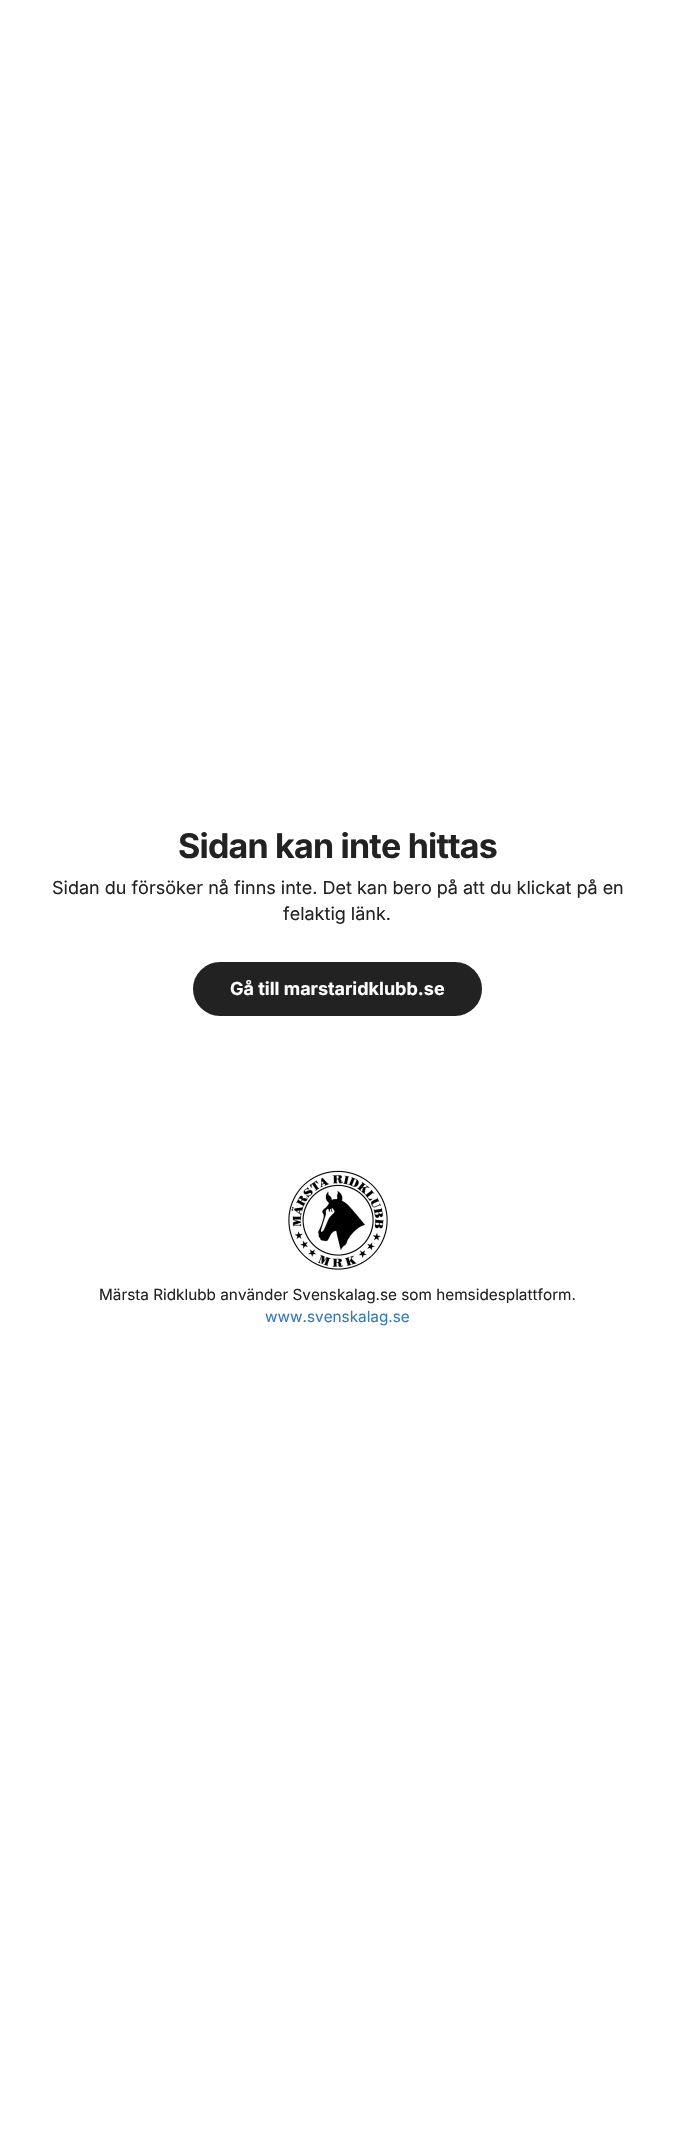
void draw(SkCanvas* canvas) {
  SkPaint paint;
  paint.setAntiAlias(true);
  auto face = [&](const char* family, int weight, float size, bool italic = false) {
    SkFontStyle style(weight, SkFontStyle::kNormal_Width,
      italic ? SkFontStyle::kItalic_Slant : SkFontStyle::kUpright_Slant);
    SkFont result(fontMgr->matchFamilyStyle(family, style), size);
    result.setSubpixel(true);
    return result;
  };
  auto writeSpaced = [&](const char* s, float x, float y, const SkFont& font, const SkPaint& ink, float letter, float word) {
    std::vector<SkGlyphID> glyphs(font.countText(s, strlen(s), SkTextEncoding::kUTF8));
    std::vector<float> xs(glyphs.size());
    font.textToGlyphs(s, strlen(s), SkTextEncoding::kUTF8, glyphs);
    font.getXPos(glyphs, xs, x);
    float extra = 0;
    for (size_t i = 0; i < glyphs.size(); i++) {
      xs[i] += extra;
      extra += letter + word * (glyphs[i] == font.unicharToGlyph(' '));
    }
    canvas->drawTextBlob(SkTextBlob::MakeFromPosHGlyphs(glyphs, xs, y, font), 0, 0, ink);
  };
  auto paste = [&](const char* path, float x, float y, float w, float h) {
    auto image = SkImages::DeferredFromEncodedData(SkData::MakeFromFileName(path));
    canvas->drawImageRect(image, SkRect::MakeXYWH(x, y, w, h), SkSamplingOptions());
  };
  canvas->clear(0xffffffff);
  paint.setColor(0xff222222);
  canvas->drawRoundRect(SkRect::MakeXYWH(194, 963, 287, 52), 26, 26, paint);
  paint.setStroke(true);
  paint.setStrokeWidth(2);
  canvas->drawRoundRect(SkRect::MakeXYWH(194, 963, 287, 52), 26, 26, paint);
  paste("img/1.png", 288, 1170, 100, 100);
  auto f0 = face("Inter", 700, 34);
  paint.setStroke(false);
  writeSpaced("Sidan kan inte hittas", 178, 858, f0, paint, -0.8f, 0);
  auto f1 = face("Inter", 400, 18);
  canvas->drawString("Sidan du försöker nå finns inte. Det kan bero på att du klickat på en", 52, 894, f1, paint);
  canvas->drawString("felaktig länk.", 283, 920, f1, paint);
  auto f2 = face("Inter", 700, 18);
  paint.setColor(0xffffffff);
  canvas->drawString("Gå till marstaridklubb.se", 230, 995, f2, paint);
  auto f3 = face("Inter", 400, 15.3f);
  paint.setColor(0xff222222);
  canvas->drawString("Märsta Ridklubb använder Svenskalag.se som hemsidesplattform.", 99, 1300, f3, paint);
  paint.setColor(0xff337ab7);
  canvas->drawString("www.svenskalag.se", 265, 1322, f3, paint);
}
